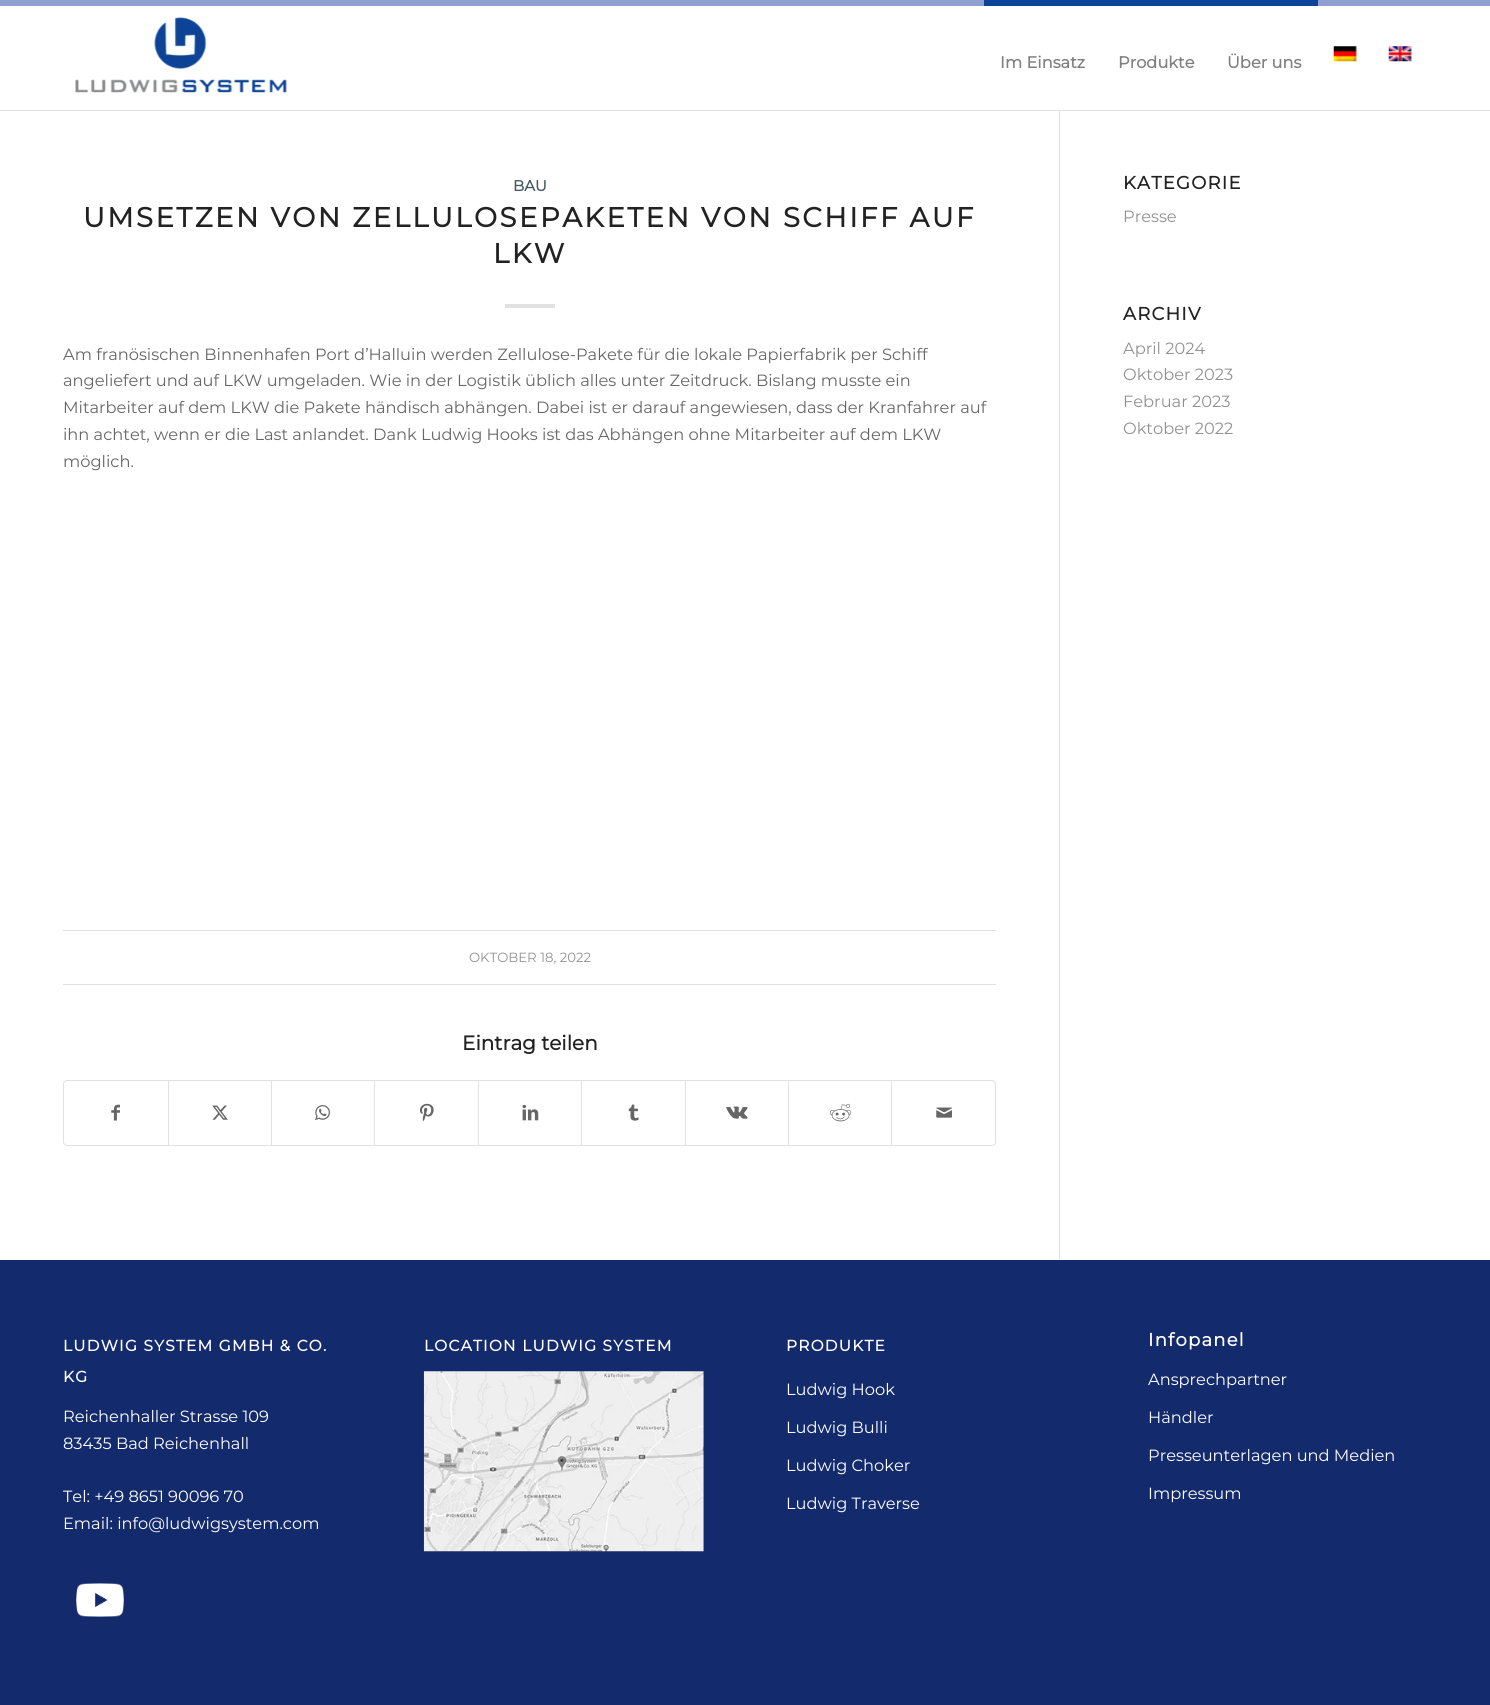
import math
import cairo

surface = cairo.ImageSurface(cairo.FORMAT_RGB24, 1490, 1705)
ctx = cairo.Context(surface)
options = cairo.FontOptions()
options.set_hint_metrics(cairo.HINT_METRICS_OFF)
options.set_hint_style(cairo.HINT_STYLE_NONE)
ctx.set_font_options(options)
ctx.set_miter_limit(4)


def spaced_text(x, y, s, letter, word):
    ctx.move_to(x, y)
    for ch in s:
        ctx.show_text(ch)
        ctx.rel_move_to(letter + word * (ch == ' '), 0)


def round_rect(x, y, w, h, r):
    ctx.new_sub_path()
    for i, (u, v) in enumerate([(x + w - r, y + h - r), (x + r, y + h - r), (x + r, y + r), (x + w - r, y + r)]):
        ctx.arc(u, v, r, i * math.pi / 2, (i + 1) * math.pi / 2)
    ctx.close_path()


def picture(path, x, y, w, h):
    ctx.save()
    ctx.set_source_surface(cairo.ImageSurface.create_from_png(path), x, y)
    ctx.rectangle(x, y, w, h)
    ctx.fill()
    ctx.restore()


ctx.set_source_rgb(1, 1, 1)
ctx.paint()
ctx.set_source_rgb(0.557, 0.624, 0.816)
ctx.rectangle(0, 0, 1490, 6)
ctx.fill()
ctx.set_source_rgb(0.882, 0.882, 0.882)
ctx.rectangle(0, 110, 1490, 1)
ctx.fill()
picture("img1.png", 75, 17, 212, 76)
ctx.set_source_rgb(0.055, 0.267, 0.592)
ctx.rectangle(984, 0, 334, 6)
ctx.fill()
ctx.select_font_face("Montserrat", cairo.FONT_SLANT_NORMAL, cairo.FONT_WEIGHT_BOLD)
ctx.set_font_size(16.25)
ctx.set_source_rgb(0.502, 0.502, 0.502)
ctx.move_to(1000, 68)
ctx.show_text("Im Einsatz")
ctx.move_to(1118, 68)
ctx.show_text("Produkte")
ctx.move_to(1227, 68)
ctx.show_text("Über uns")
picture("img2.png", 1333, 46, 24, 16)
picture("img3.png", 1388, 46, 24, 16)
ctx.set_source_rgb(0.882, 0.882, 0.882)
ctx.rectangle(1059, 111, 1, 1148)
ctx.fill()
ctx.set_font_size(15)
ctx.set_source_rgb(0.263, 0.349, 0.376)
ctx.move_to(513, 191)
ctx.show_text("BAU")
ctx.set_font_size(27.5)
ctx.set_source_rgb(0.133, 0.133, 0.133)
spaced_text(83, 227, "UMSETZEN VON ZELLULOSEPAKETEN VON SCHIFF AUF", 2.5, 0)
spaced_text(493, 263, "LKW", 2.5, 0)
ctx.set_source_rgb(0.882, 0.882, 0.882)
ctx.rectangle(505, 304, 50, 4)
ctx.fill()
ctx.select_font_face("Montserrat Thin")
ctx.set_font_size(16.25)
ctx.set_source_rgb(0.4, 0.4, 0.4)
ctx.move_to(63, 360)
ctx.show_text("Am franösischen Binnenhafen Port d’Halluin werden Zellulose-Pakete für die lokale Papierfabrik per Schiff")
ctx.move_to(63, 386)
ctx.show_text("angeliefert und auf LKW umgeladen. Wie in der Logistik üblich alles unter Zeitdruck. Bislang musste ein")
ctx.move_to(63, 413)
ctx.show_text("Mitarbeiter auf dem LKW die Pakete händisch abhängen. Dabei ist er darauf angewiesen, dass der Kranfahrer auf")
ctx.move_to(63, 440)
ctx.show_text("ihn achtet, wenn er die Last anlandet. Dank Ludwig Hooks ist das Abhängen ohne Mitarbeiter auf dem LKW")
ctx.move_to(63, 467)
ctx.show_text("möglich.")
ctx.set_source_rgb(0.882, 0.882, 0.882)
ctx.rectangle(63, 930, 933, 1)
ctx.fill()
ctx.rectangle(63, 984, 933, 1)
ctx.fill()
ctx.set_font_size(13.25)
ctx.set_source_rgb(0.569, 0.569, 0.569)
ctx.move_to(469, 962)
ctx.show_text("OKTOBER 18, 2022")
ctx.select_font_face("Montserrat", cairo.FONT_SLANT_NORMAL, cairo.FONT_WEIGHT_BOLD)
ctx.set_font_size(20)
ctx.set_source_rgb(0.133, 0.133, 0.133)
ctx.move_to(462, 1050)
ctx.show_text("Eintrag teilen")
round_rect(63.5, 1080.5, 932, 65, 3.5)
ctx.set_source_rgb(0.882, 0.882, 0.882)
ctx.set_line_width(1)
ctx.stroke()
picture("img4.png", 111, 1104, 9, 17)
ctx.rectangle(168, 1081, 1, 64)
ctx.fill()
picture("img5.png", 212, 1105, 16, 15)
ctx.rectangle(271, 1081, 1, 64)
ctx.fill()
picture("img6.png", 315, 1105, 15, 16)
ctx.rectangle(374, 1081, 1, 64)
ctx.fill()
picture("img7.png", 420, 1103, 14, 19)
ctx.rectangle(478, 1081, 1, 64)
ctx.fill()
picture("img8.png", 522, 1104, 17, 17)
ctx.rectangle(581, 1081, 1, 64)
ctx.fill()
picture("img9.png", 628, 1104, 11, 17)
ctx.rectangle(685, 1081, 1, 64)
ctx.fill()
picture("img10.png", 726, 1106, 22, 13)
ctx.rectangle(788, 1081, 1, 64)
ctx.fill()
picture("img11.png", 830, 1103, 22, 19)
ctx.rectangle(891, 1081, 1, 64)
ctx.fill()
picture("img12.png", 936, 1107, 16, 11)
ctx.set_font_size(18)
ctx.set_source_rgb(0.133, 0.133, 0.133)
spaced_text(1123, 189, "KATEGORIE", 1.25, 0)
ctx.select_font_face("Montserrat Thin")
ctx.set_font_size(16.25)
ctx.set_source_rgb(0.569, 0.569, 0.569)
ctx.move_to(1123, 222)
ctx.show_text("Presse")
ctx.select_font_face("Montserrat", cairo.FONT_SLANT_NORMAL, cairo.FONT_WEIGHT_BOLD)
ctx.set_font_size(18)
ctx.set_source_rgb(0.133, 0.133, 0.133)
spaced_text(1123, 320, "ARCHIV", 1.25, 0)
ctx.select_font_face("Montserrat Thin")
ctx.set_font_size(16.25)
ctx.set_source_rgb(0.569, 0.569, 0.569)
ctx.move_to(1123, 354)
ctx.show_text("April 2024")
ctx.move_to(1123, 380)
ctx.show_text("Oktober 2023")
ctx.move_to(1123, 407)
ctx.show_text("Februar 2023")
ctx.move_to(1123, 434)
ctx.show_text("Oktober 2022")
ctx.set_source_rgb(0.078, 0.165, 0.427)
ctx.rectangle(0, 1260, 1490, 445)
ctx.fill()
ctx.select_font_face("Montserrat", cairo.FONT_SLANT_NORMAL, cairo.FONT_WEIGHT_BOLD)
ctx.set_font_size(15.4)
ctx.set_source_rgb(1, 1, 1)
spaced_text(63, 1351, "LUDWIG SYSTEM GMBH & CO.", 1.25, 0)
spaced_text(63, 1382, "KG", 1.25, 0)
ctx.select_font_face("Montserrat Thin")
ctx.set_font_size(16.25)
ctx.move_to(63, 1422)
ctx.show_text("Reichenhaller Strasse 109")
ctx.move_to(63, 1449)
ctx.show_text("83435 Bad Reichenhall")
ctx.move_to(63, 1502)
ctx.show_text("Tel: +49 8651 90096 70")
ctx.move_to(63, 1529)
ctx.show_text("Email: info@ludwigsystem.com")
picture("img13.png", 76, 1583, 48, 34)
ctx.select_font_face("Montserrat", cairo.FONT_SLANT_NORMAL, cairo.FONT_WEIGHT_BOLD)
ctx.set_font_size(15.4)
spaced_text(424, 1351, "LOCATION LUDWIG SYSTEM", 1.25, 0)
picture("img14.png", 423, 1371, 281, 181)
spaced_text(786, 1351, "PRODUKTE", 1.25, 0)
ctx.select_font_face("Montserrat Thin")
ctx.set_font_size(16.25)
ctx.move_to(786, 1395)
ctx.show_text("Ludwig Hook")
ctx.move_to(786, 1433)
ctx.show_text("Ludwig Bulli")
ctx.move_to(786, 1471)
ctx.show_text("Ludwig Choker")
ctx.move_to(786, 1509)
ctx.show_text("Ludwig Traverse")
ctx.select_font_face("Montserrat", cairo.FONT_SLANT_NORMAL, cairo.FONT_WEIGHT_BOLD)
ctx.set_font_size(18)
spaced_text(1148, 1346, "Infopanel", 1.25, 0)
ctx.select_font_face("Montserrat Thin")
ctx.set_font_size(16.25)
ctx.move_to(1148, 1385)
ctx.show_text("Ansprechpartner")
ctx.move_to(1148, 1423)
ctx.show_text("Händler")
ctx.move_to(1148, 1461)
ctx.show_text("Presseunterlagen und Medien")
ctx.move_to(1148, 1499)
ctx.show_text("Impressum")
surface.write_to_png("page.png")
